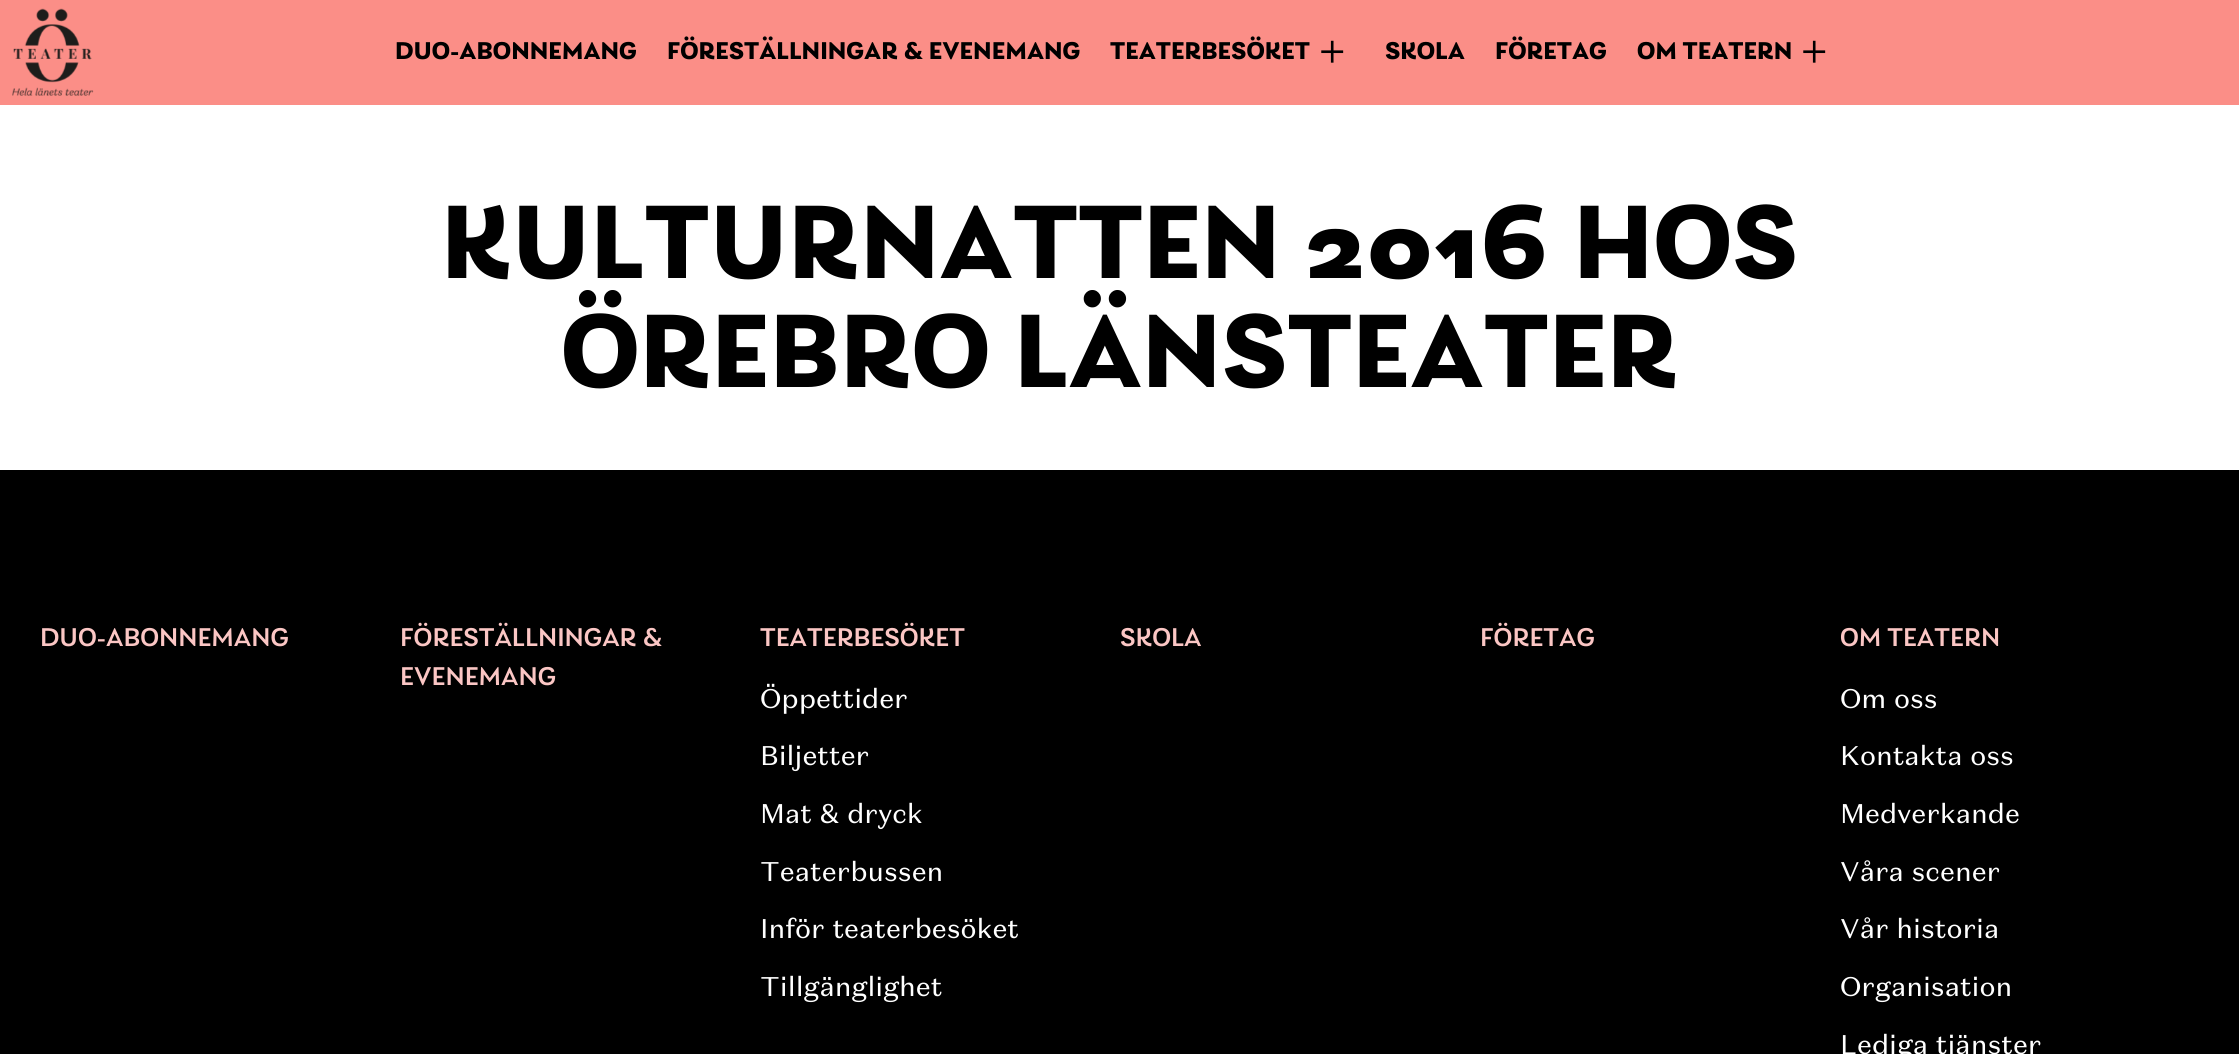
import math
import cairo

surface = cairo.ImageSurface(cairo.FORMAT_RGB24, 2239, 1054)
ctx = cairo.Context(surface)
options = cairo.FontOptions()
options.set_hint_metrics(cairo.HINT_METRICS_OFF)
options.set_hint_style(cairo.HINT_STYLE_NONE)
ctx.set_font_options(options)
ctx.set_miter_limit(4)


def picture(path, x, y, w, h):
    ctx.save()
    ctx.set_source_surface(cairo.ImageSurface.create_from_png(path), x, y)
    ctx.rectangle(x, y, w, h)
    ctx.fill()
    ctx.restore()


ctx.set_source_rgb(1, 1, 1)
ctx.paint()
ctx.set_source_rgb(0.984, 0.557, 0.529)
ctx.rectangle(0, 0, 2239, 105)
ctx.fill()
picture("img1.png", 12, 8, 82, 88)
ctx.select_font_face("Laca", cairo.FONT_SLANT_NORMAL, cairo.FONT_WEIGHT_BOLD)
ctx.set_font_size(25.5)
ctx.set_source_rgb(0, 0, 0)
ctx.move_to(395, 59)
ctx.show_text("DUO-ABONNEMANG")
ctx.move_to(667, 59)
ctx.show_text("FÖRESTÄLLNINGAR & EVENEMANG")
ctx.move_to(1110, 59)
ctx.show_text("TEATERBESÖKET")
ctx.select_font_face("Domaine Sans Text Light")
ctx.set_font_size(48)
ctx.move_to(1317, 68)
ctx.show_text("+")
ctx.select_font_face("Laca", cairo.FONT_SLANT_NORMAL, cairo.FONT_WEIGHT_BOLD)
ctx.set_font_size(25.5)
ctx.move_to(1385, 59)
ctx.show_text("SKOLA")
ctx.move_to(1495, 59)
ctx.show_text("FÖRETAG")
ctx.move_to(1637, 59)
ctx.show_text("OM TEATERN")
ctx.select_font_face("Domaine Sans Text Light")
ctx.set_font_size(48)
ctx.move_to(1799, 68)
ctx.show_text("+")
ctx.select_font_face("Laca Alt", cairo.FONT_SLANT_NORMAL, cairo.FONT_WEIGHT_BOLD)
ctx.set_font_size(109.5)
ctx.move_to(441, 278)
ctx.show_text("KULTURNATTEN 2016 HOS")
ctx.select_font_face("Laca", cairo.FONT_SLANT_NORMAL, cairo.FONT_WEIGHT_BOLD)
ctx.move_to(561, 387)
ctx.show_text("ÖREBRO LÄNSTEATER")
ctx.rectangle(0, 470, 2239, 584)
ctx.fill()
ctx.select_font_face("Laca Medium")
ctx.set_font_size(27)
ctx.set_source_rgb(0.984, 0.776, 0.769)
ctx.move_to(40, 646)
ctx.show_text("DUO-ABONNEMANG")
ctx.move_to(400, 646)
ctx.show_text("FÖRESTÄLLNINGAR &")
ctx.move_to(400, 685)
ctx.show_text("EVENEMANG")
ctx.move_to(760, 646)
ctx.show_text("TEATERBESÖKET")
ctx.select_font_face("Domaine Sans Text")
ctx.set_source_rgb(1, 1, 1)
ctx.move_to(760, 708)
ctx.show_text("Öppettider")
ctx.move_to(760, 765)
ctx.show_text("Biljetter")
ctx.move_to(760, 823)
ctx.show_text("Mat & dryck")
ctx.move_to(760, 881)
ctx.show_text("Teaterbussen")
ctx.move_to(760, 938)
ctx.show_text("Inför teaterbesöket")
ctx.move_to(760, 996)
ctx.show_text("Tillgänglighet")
ctx.select_font_face("Laca Medium")
ctx.set_source_rgb(0.984, 0.776, 0.769)
ctx.move_to(1120, 646)
ctx.show_text("SKOLA")
ctx.move_to(1480, 646)
ctx.show_text("FÖRETAG")
ctx.move_to(1840, 646)
ctx.show_text("OM TEATERN")
ctx.select_font_face("Domaine Sans Text")
ctx.set_source_rgb(1, 1, 1)
ctx.move_to(1840, 708)
ctx.show_text("Om oss")
ctx.move_to(1840, 765)
ctx.show_text("Kontakta oss")
ctx.move_to(1840, 823)
ctx.show_text("Medverkande")
ctx.move_to(1840, 881)
ctx.show_text("Våra scener")
ctx.move_to(1840, 938)
ctx.show_text("Vår historia")
ctx.move_to(1840, 996)
ctx.show_text("Organisation")
ctx.move_to(1840, 1054)
ctx.show_text("Lediga tjänster")
surface.write_to_png("page.png")
